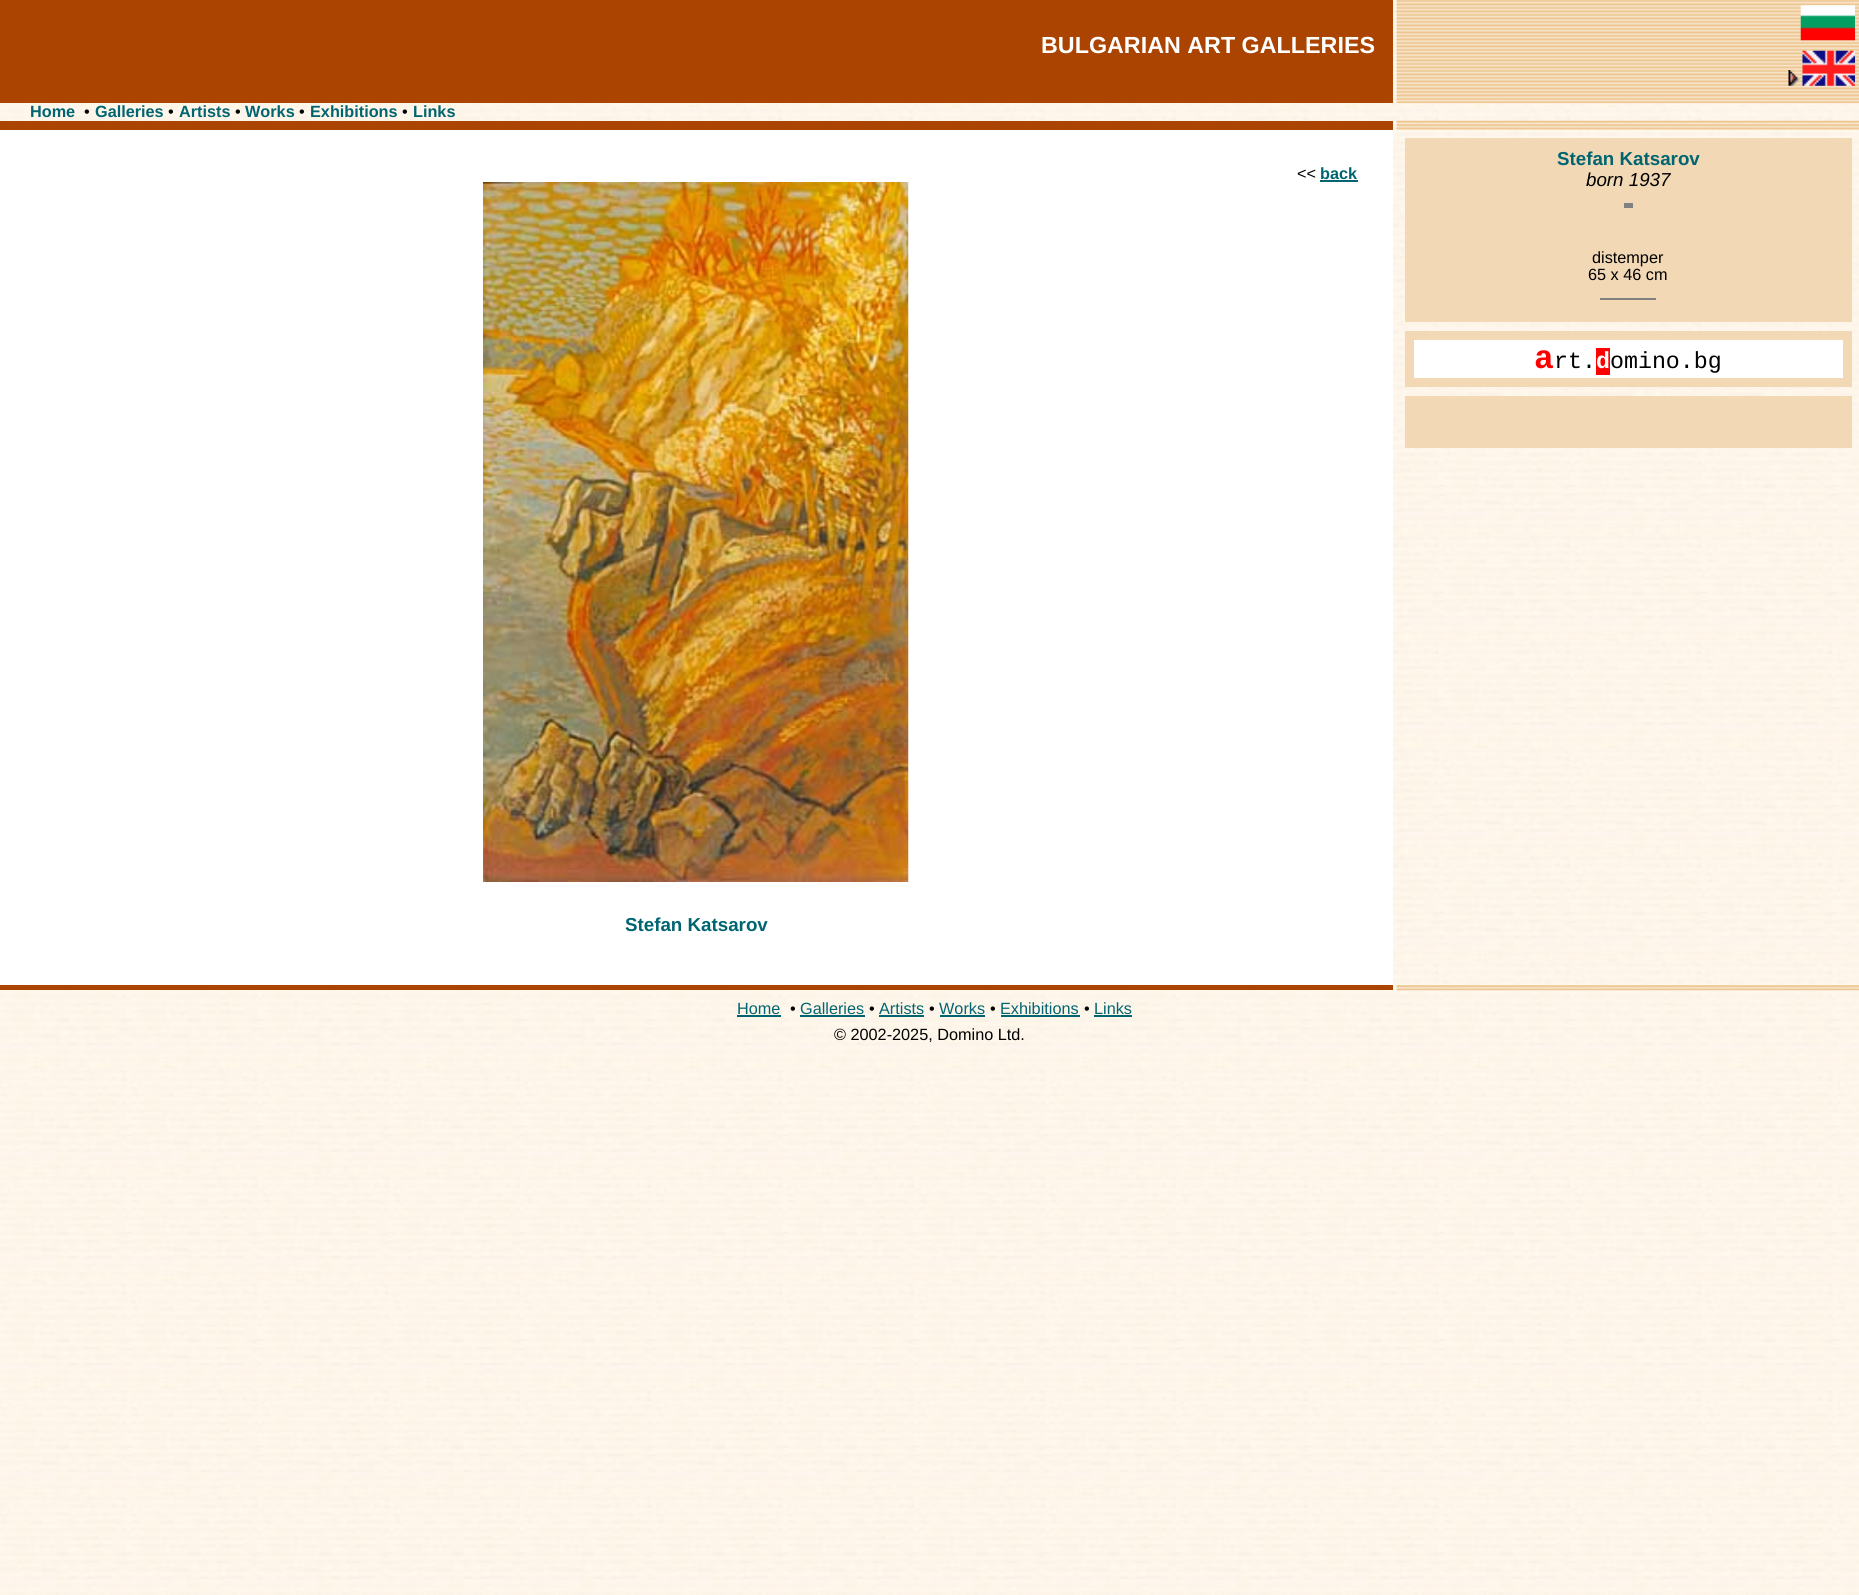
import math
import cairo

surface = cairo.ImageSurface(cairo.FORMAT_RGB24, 1859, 1595)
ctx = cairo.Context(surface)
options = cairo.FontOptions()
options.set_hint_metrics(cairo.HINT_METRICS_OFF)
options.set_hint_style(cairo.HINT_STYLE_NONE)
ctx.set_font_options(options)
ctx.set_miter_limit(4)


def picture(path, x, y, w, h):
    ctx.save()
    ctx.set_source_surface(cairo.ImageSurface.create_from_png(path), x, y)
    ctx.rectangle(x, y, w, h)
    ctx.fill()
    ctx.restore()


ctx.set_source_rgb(1, 1, 1)
ctx.paint()
picture("img1.png", 0, 0, 1859, 1595)
ctx.set_source_rgb(0.667, 0.267, 0)
ctx.rectangle(0, 0, 1393, 103)
ctx.fill()
ctx.select_font_face("Liberation Sans", cairo.FONT_SLANT_NORMAL, cairo.FONT_WEIGHT_BOLD)
ctx.set_font_size(23.3)
ctx.set_source_rgb(1, 1, 1)
ctx.move_to(1041, 53)
ctx.show_text("BULGARIAN ART GALLERIES")
ctx.set_source_rgb(0.969, 0.902, 0.808)
ctx.rectangle(1397, 0, 462, 103)
ctx.fill()
picture("img2.png", 1396, 0, 463, 104)
picture("img3.png", 1800, 5, 55, 36)
picture("img4.png", 1788, 70, 12, 16)
picture("img5.png", 1802, 50, 53, 36)
ctx.set_font_size(16.25)
ctx.set_source_rgb(0, 0.396, 0.443)
ctx.move_to(30, 117)
ctx.show_text("Home")
ctx.select_font_face("Liberation Sans")
ctx.set_source_rgb(0, 0, 0)
ctx.move_to(84, 117)
ctx.show_text("•")
ctx.select_font_face("Liberation Sans", cairo.FONT_SLANT_NORMAL, cairo.FONT_WEIGHT_BOLD)
ctx.set_source_rgb(0, 0.396, 0.443)
ctx.move_to(95, 117)
ctx.show_text("Galleries")
ctx.select_font_face("Liberation Sans")
ctx.set_source_rgb(0, 0, 0)
ctx.move_to(168, 117)
ctx.show_text("•")
ctx.select_font_face("Liberation Sans", cairo.FONT_SLANT_NORMAL, cairo.FONT_WEIGHT_BOLD)
ctx.set_source_rgb(0, 0.396, 0.443)
ctx.move_to(179, 117)
ctx.show_text("Artists")
ctx.select_font_face("Liberation Sans")
ctx.set_source_rgb(0, 0, 0)
ctx.move_to(235, 117)
ctx.show_text("•")
ctx.select_font_face("Liberation Sans", cairo.FONT_SLANT_NORMAL, cairo.FONT_WEIGHT_BOLD)
ctx.set_source_rgb(0, 0.396, 0.443)
ctx.move_to(245, 117)
ctx.show_text("Works")
ctx.select_font_face("Liberation Sans")
ctx.set_source_rgb(0, 0, 0)
ctx.move_to(299, 117)
ctx.show_text("•")
ctx.select_font_face("Liberation Sans", cairo.FONT_SLANT_NORMAL, cairo.FONT_WEIGHT_BOLD)
ctx.set_source_rgb(0, 0.396, 0.443)
ctx.move_to(310, 117)
ctx.show_text("Exhibitions")
ctx.select_font_face("Liberation Sans")
ctx.set_source_rgb(0, 0, 0)
ctx.move_to(402, 117)
ctx.show_text("•")
ctx.select_font_face("Liberation Sans", cairo.FONT_SLANT_NORMAL, cairo.FONT_WEIGHT_BOLD)
ctx.set_source_rgb(0, 0.396, 0.443)
ctx.move_to(413, 117)
ctx.show_text("Links")
ctx.set_source_rgb(0.667, 0.267, 0)
ctx.rectangle(0, 121, 1393, 9)
ctx.fill()
ctx.set_source_rgb(0.969, 0.902, 0.808)
ctx.rectangle(1397, 122, 462, 8)
ctx.fill()
picture("img6.png", 1396, 120, 463, 10)
ctx.set_source_rgb(1, 1, 1)
ctx.rectangle(0, 130, 1393, 855)
ctx.fill()
ctx.select_font_face("Liberation Sans")
ctx.set_source_rgb(0, 0, 0)
ctx.move_to(1297, 179)
ctx.show_text("<<")
ctx.select_font_face("Liberation Sans", cairo.FONT_SLANT_NORMAL, cairo.FONT_WEIGHT_BOLD)
ctx.set_source_rgb(0, 0.396, 0.443)
ctx.move_to(1320, 179)
ctx.show_text("back")
ctx.rectangle(1320, 180, 38, 2)
ctx.fill()
picture("img7.png", 483, 182, 426, 700)
ctx.set_font_size(18.75)
ctx.move_to(625, 931)
ctx.show_text("Stefan Katsarov")
ctx.set_source_rgb(0.949, 0.847, 0.71)
ctx.rectangle(1405, 138, 447, 184)
ctx.fill()
ctx.set_source_rgb(0, 0.396, 0.443)
ctx.move_to(1557, 165)
ctx.show_text("Stefan Katsarov")
ctx.select_font_face("Liberation Sans", cairo.FONT_SLANT_ITALIC)
ctx.set_source_rgb(0, 0, 0)
ctx.move_to(1586, 186)
ctx.show_text("born 1937")
ctx.set_source_rgb(0.502, 0.502, 0.502)
ctx.rectangle(1624, 203, 9, 5)
ctx.fill()
ctx.select_font_face("Liberation Sans")
ctx.set_font_size(16.25)
ctx.set_source_rgb(0, 0, 0)
ctx.move_to(1592, 263)
ctx.show_text("distemper")
ctx.move_to(1588, 280)
ctx.show_text("65 x 46 cm")
ctx.set_source_rgb(0.502, 0.502, 0.502)
ctx.rectangle(1600, 298, 56, 2)
ctx.fill()
ctx.set_source_rgb(0.949, 0.847, 0.71)
ctx.rectangle(1405, 331, 447, 56)
ctx.fill()
ctx.set_source_rgb(1, 1, 1)
ctx.rectangle(1414, 340, 429, 38)
ctx.fill()
ctx.select_font_face("Liberation Mono", cairo.FONT_SLANT_NORMAL, cairo.FONT_WEIGHT_BOLD)
ctx.set_font_size(33)
ctx.set_source_rgb(1, 0, 0)
ctx.move_to(1534, 368)
ctx.show_text("a")
ctx.select_font_face("Liberation Mono")
ctx.set_font_size(23.3)
ctx.set_source_rgb(0, 0, 0)
ctx.move_to(1554, 368)
ctx.show_text("rt. omino.bg")
ctx.set_source_rgb(1, 0, 0)
ctx.rectangle(1596, 348, 14, 27)
ctx.fill()
ctx.select_font_face("Liberation Mono", cairo.FONT_SLANT_NORMAL, cairo.FONT_WEIGHT_BOLD)
ctx.set_source_rgb(1, 1, 1)
ctx.move_to(1596, 368)
ctx.show_text("d")
ctx.set_source_rgb(0.949, 0.847, 0.71)
ctx.rectangle(1405, 396, 447, 52)
ctx.fill()
ctx.set_source_rgb(0.667, 0.267, 0)
ctx.rectangle(0, 985, 1393, 5)
ctx.fill()
ctx.set_source_rgb(0.969, 0.902, 0.808)
ctx.rectangle(1397, 985, 462, 5)
ctx.fill()
picture("img8.png", 1396, 985, 463, 6)
ctx.select_font_face("Liberation Sans")
ctx.set_font_size(16.25)
ctx.set_source_rgb(0, 0.396, 0.443)
ctx.move_to(737, 1014)
ctx.show_text("Home")
ctx.rectangle(737, 1015, 44, 2)
ctx.fill()
ctx.set_source_rgb(0, 0, 0)
ctx.move_to(790, 1014)
ctx.show_text("•")
ctx.set_source_rgb(0, 0.396, 0.443)
ctx.move_to(800, 1014)
ctx.show_text("Galleries")
ctx.rectangle(800, 1015, 65, 2)
ctx.fill()
ctx.set_source_rgb(0, 0, 0)
ctx.move_to(869, 1014)
ctx.show_text("•")
ctx.set_source_rgb(0, 0.396, 0.443)
ctx.move_to(879, 1014)
ctx.show_text("Artists")
ctx.rectangle(879, 1015, 45, 2)
ctx.fill()
ctx.set_source_rgb(0, 0, 0)
ctx.move_to(929, 1014)
ctx.show_text("•")
ctx.set_source_rgb(0, 0.396, 0.443)
ctx.move_to(939, 1014)
ctx.show_text("Works")
ctx.rectangle(940, 1015, 45, 2)
ctx.fill()
ctx.set_source_rgb(0, 0, 0)
ctx.move_to(990, 1014)
ctx.show_text("•")
ctx.set_source_rgb(0, 0.396, 0.443)
ctx.move_to(1000, 1014)
ctx.show_text("Exhibitions")
ctx.rectangle(1001, 1015, 79, 2)
ctx.fill()
ctx.set_source_rgb(0, 0, 0)
ctx.move_to(1084, 1014)
ctx.show_text("•")
ctx.set_source_rgb(0, 0.396, 0.443)
ctx.move_to(1094, 1014)
ctx.show_text("Links")
ctx.rectangle(1094, 1015, 38, 2)
ctx.fill()
ctx.set_source_rgb(0, 0, 0)
ctx.move_to(834, 1040)
ctx.show_text("© 2002-2025, Domino Ltd.")
surface.write_to_png("page.png")
